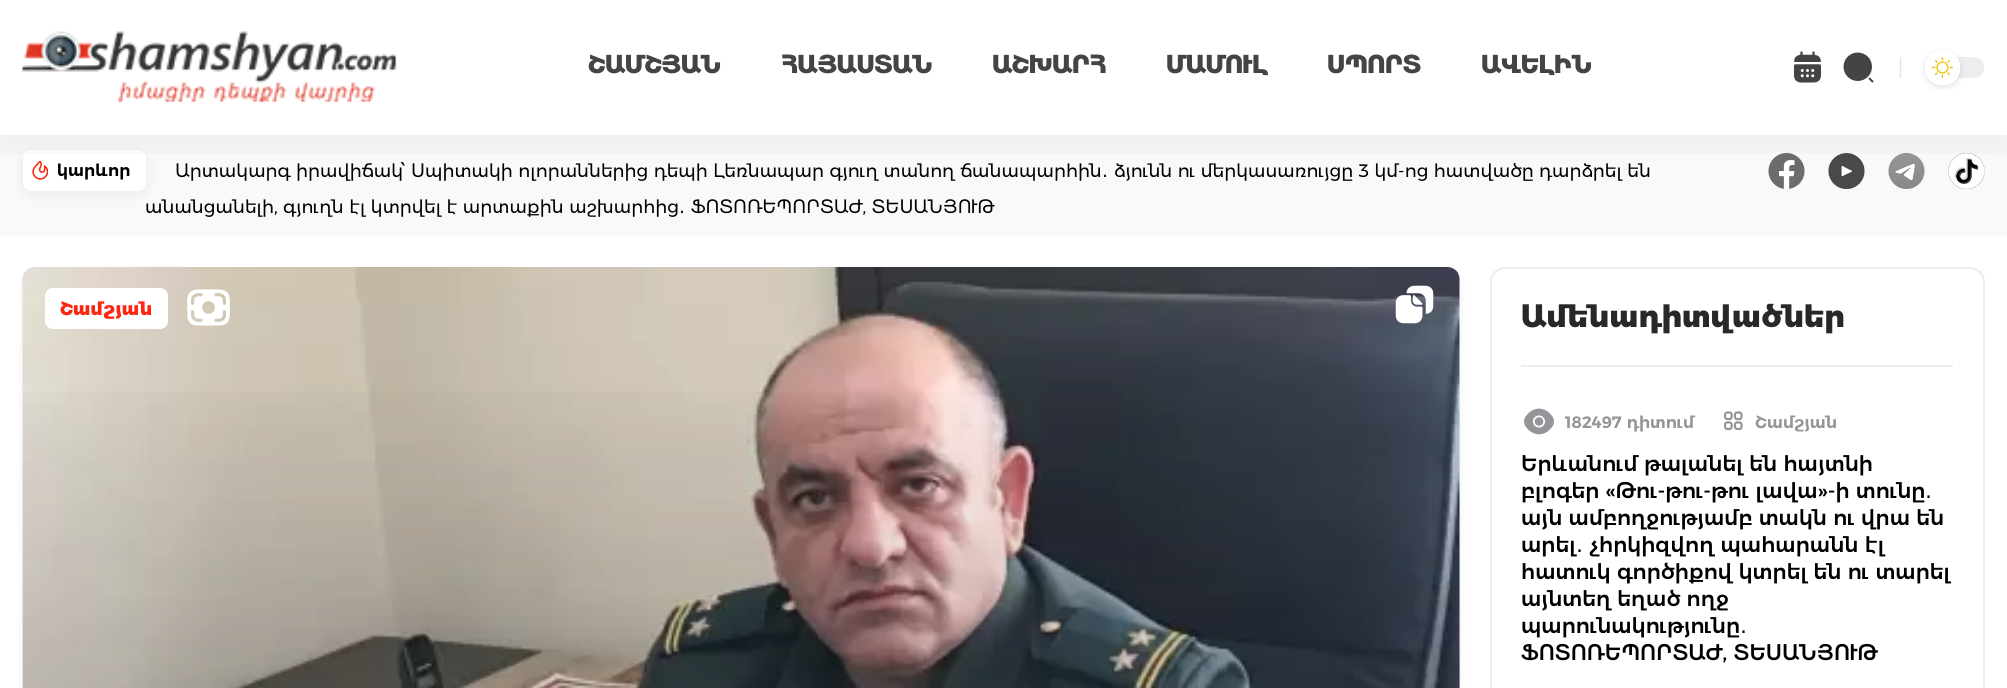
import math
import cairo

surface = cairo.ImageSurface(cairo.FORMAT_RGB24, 2007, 688)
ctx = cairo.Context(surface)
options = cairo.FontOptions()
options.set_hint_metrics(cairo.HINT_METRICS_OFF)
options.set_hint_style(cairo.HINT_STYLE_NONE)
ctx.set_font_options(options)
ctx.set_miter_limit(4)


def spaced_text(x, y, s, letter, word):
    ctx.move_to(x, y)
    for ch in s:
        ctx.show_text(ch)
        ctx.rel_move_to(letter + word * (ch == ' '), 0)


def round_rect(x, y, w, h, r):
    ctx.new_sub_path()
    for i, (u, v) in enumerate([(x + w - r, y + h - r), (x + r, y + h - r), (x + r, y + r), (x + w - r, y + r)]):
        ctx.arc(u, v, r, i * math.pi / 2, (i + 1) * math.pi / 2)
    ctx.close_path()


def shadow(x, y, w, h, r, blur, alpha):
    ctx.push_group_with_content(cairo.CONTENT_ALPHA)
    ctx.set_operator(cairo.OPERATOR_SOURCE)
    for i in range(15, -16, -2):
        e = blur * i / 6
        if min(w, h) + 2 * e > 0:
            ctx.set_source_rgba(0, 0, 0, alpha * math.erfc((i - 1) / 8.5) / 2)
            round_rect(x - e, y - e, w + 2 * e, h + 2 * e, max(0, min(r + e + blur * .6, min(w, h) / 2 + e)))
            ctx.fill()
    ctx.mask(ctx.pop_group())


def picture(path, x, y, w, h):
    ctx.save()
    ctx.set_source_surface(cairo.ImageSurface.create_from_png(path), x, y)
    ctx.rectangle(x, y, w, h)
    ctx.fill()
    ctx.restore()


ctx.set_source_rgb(1, 1, 1)
ctx.paint()
ctx.set_source_rgb(0.976, 0.976, 0.976)
ctx.rectangle(0, 135, 2007, 102)
ctx.fill()
ctx.set_source_rgb(0, 0, 0)
shadow(23, 153, 123, 41, 8, 7.5, 0.07)
ctx.set_source_rgb(1, 1, 1)
round_rect(23, 150, 123, 41, 8)
ctx.fill()
picture("img5.png", 32, 161, 16, 19)
ctx.save()
ctx.rectangle(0, 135, 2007, 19)
ctx.clip()
ctx.set_source_rgb(0, 0, 0)
shadow(0, 6, 2007, 135, 0, 22.5, 0.07)
ctx.restore()
picture("img1.png", 22, 31, 375, 72)
ctx.select_font_face("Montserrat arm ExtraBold")
ctx.set_font_size(24)
ctx.set_source_rgb(0.267, 0.267, 0.267)
spaced_text(588, 73, "ՇԱՄՇՅԱՆ", -0.5, 0)
spaced_text(781, 73, "ՀԱՅԱՍՏԱՆ", -0.5, 0)
spaced_text(992, 73, "ԱՇԽԱՐՀ", -0.5, 0)
spaced_text(1166, 73, "ՄԱՄՈՒԼ", -0.5, 0)
spaced_text(1327, 73, "ՍՊՈՐՏ", -0.5, 0)
spaced_text(1481, 73, "ԱՎԵԼԻՆ", -0.5, 0)
picture("img2.png", 1794, 51, 27, 32)
picture("img3.png", 1843, 52, 31, 31)
picture("img4.png", 1899, 49, 85, 41)
ctx.select_font_face("Montserrat arm SemiBold")
ctx.set_font_size(16.5)
ctx.set_source_rgb(0, 0, 0)
ctx.move_to(57, 176)
ctx.show_text("կարևոր")
ctx.select_font_face("Montserrat arm")
ctx.set_font_size(18)
ctx.move_to(175, 177)
ctx.show_text("Արտակարգ իրավիճակ՝ Սպիտակի ոլորաններից դեպի Լեռնապար գյուղ տանող ճանապարհին")
ctx.select_font_face("DejaVu Sans")
ctx.move_to(1102, 177)
ctx.show_text("․")
ctx.select_font_face("Montserrat arm")
ctx.move_to(1114, 177)
ctx.show_text("ձյունն ու մերկասառույցը 3 կմ-ոց հատվածը դարձրել են")
ctx.move_to(145, 213)
ctx.show_text("անանցանելի, գյուղն էլ կտրվել է արտաքին աշխարհից")
ctx.select_font_face("DejaVu Sans")
ctx.move_to(679, 213)
ctx.show_text("․")
ctx.select_font_face("Montserrat arm")
ctx.move_to(691, 213)
ctx.show_text("ՖՈՏՈՌԵՊՈՐՏԱԺ, ՏԵՍԱՆՅՈՒԹ")
picture("img6.png", 1768, 153, 37, 36)
picture("img7.png", 1828, 153, 37, 36)
picture("img8.png", 1888, 153, 37, 36)
picture("img9.png", 1948, 153, 37, 36)
ctx.set_source_rgb(0, 0, 0)
shadow(24, 275, 1434, 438, 11, 4.5, 0.1)
ctx.set_source_rgb(1, 1, 1)
round_rect(23, 267, 1437, 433, 12)
ctx.fill()
picture("img10.png", 22, 267, 1438, 421)
round_rect(45, 288, 123, 41, 8)
ctx.fill()
ctx.select_font_face("Montserrat arm ExtraBold")
ctx.set_source_rgb(0.988, 0.149, 0.071)
ctx.move_to(60, 315)
ctx.show_text("Շամշյան")
picture("img11.png", 187, 289, 43, 37)
picture("img12.png", 1395, 285, 39, 39)
gradient = cairo.LinearGradient(740, 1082, 740, 339)
gradient.add_color_stop_rgba(0, 0.125, 0.122, 0.098, 0.24)
gradient.add_color_stop_rgba(0, 0.098, 0.11, 0.125, 0.3)
gradient.add_color_stop_rgba(1, 0.098, 0.11, 0.125, 0)
ctx.set_source(gradient)
ctx.rectangle(23, 392, 1437, 296)
ctx.fill()
round_rect(1491, 268, 493, 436, 14)
ctx.set_source_rgb(0.929, 0.929, 0.929)
ctx.stroke()
ctx.set_font_size(30)
ctx.set_source_rgb(0.157, 0.157, 0.157)
ctx.move_to(1521, 327)
ctx.show_text("Ամենադիտվածներ")
ctx.set_source_rgb(0.933, 0.933, 0.933)
ctx.rectangle(1521, 365, 432, 2)
ctx.fill()
picture("img13.png", 1524, 408, 30, 27)
ctx.select_font_face("Montserrat arm SemiBold")
ctx.set_font_size(16.5)
ctx.set_source_rgb(0.576, 0.584, 0.596)
ctx.move_to(1565, 428)
ctx.show_text("182497 դիտում")
picture("img14.png", 1724, 411, 19, 20)
ctx.move_to(1755, 428)
ctx.show_text("Շամշյան")
ctx.select_font_face("Montserrat arm Medium")
ctx.set_font_size(21)
ctx.set_source_rgb(0, 0, 0)
ctx.move_to(1521, 471)
ctx.show_text("Երևանում թալանել են հայտնի")
ctx.move_to(1521, 498)
ctx.show_text("բլոգեր «Թու-թու-թու լավա»-ի տունը")
ctx.select_font_face("DejaVu Sans")
ctx.move_to(1925, 498)
ctx.show_text("․")
ctx.select_font_face("Montserrat arm Medium")
ctx.move_to(1521, 525)
ctx.show_text("այն ամբողջությամբ տակն ու վրա են")
ctx.move_to(1521, 552)
ctx.show_text("արել")
ctx.select_font_face("DejaVu Sans")
ctx.move_to(1576, 552)
ctx.show_text("․")
ctx.select_font_face("Montserrat arm Medium")
ctx.move_to(1589, 552)
ctx.show_text("չհրկիզվող պահարանն էլ")
ctx.move_to(1521, 579)
ctx.show_text("հատուկ գործիքով կտրել են ու տարել")
ctx.move_to(1521, 606)
ctx.show_text("այնտեղ եղած ողջ")
ctx.move_to(1521, 633)
ctx.show_text("պարունակությունը")
ctx.select_font_face("DejaVu Sans")
ctx.move_to(1740, 633)
ctx.show_text("․")
ctx.select_font_face("Montserrat arm Medium")
ctx.move_to(1521, 660)
ctx.show_text("ՖՈՏՈՌԵՊՈՐՏԱԺ, ՏԵՍԱՆՅՈՒԹ")
surface.write_to_png("page.png")
